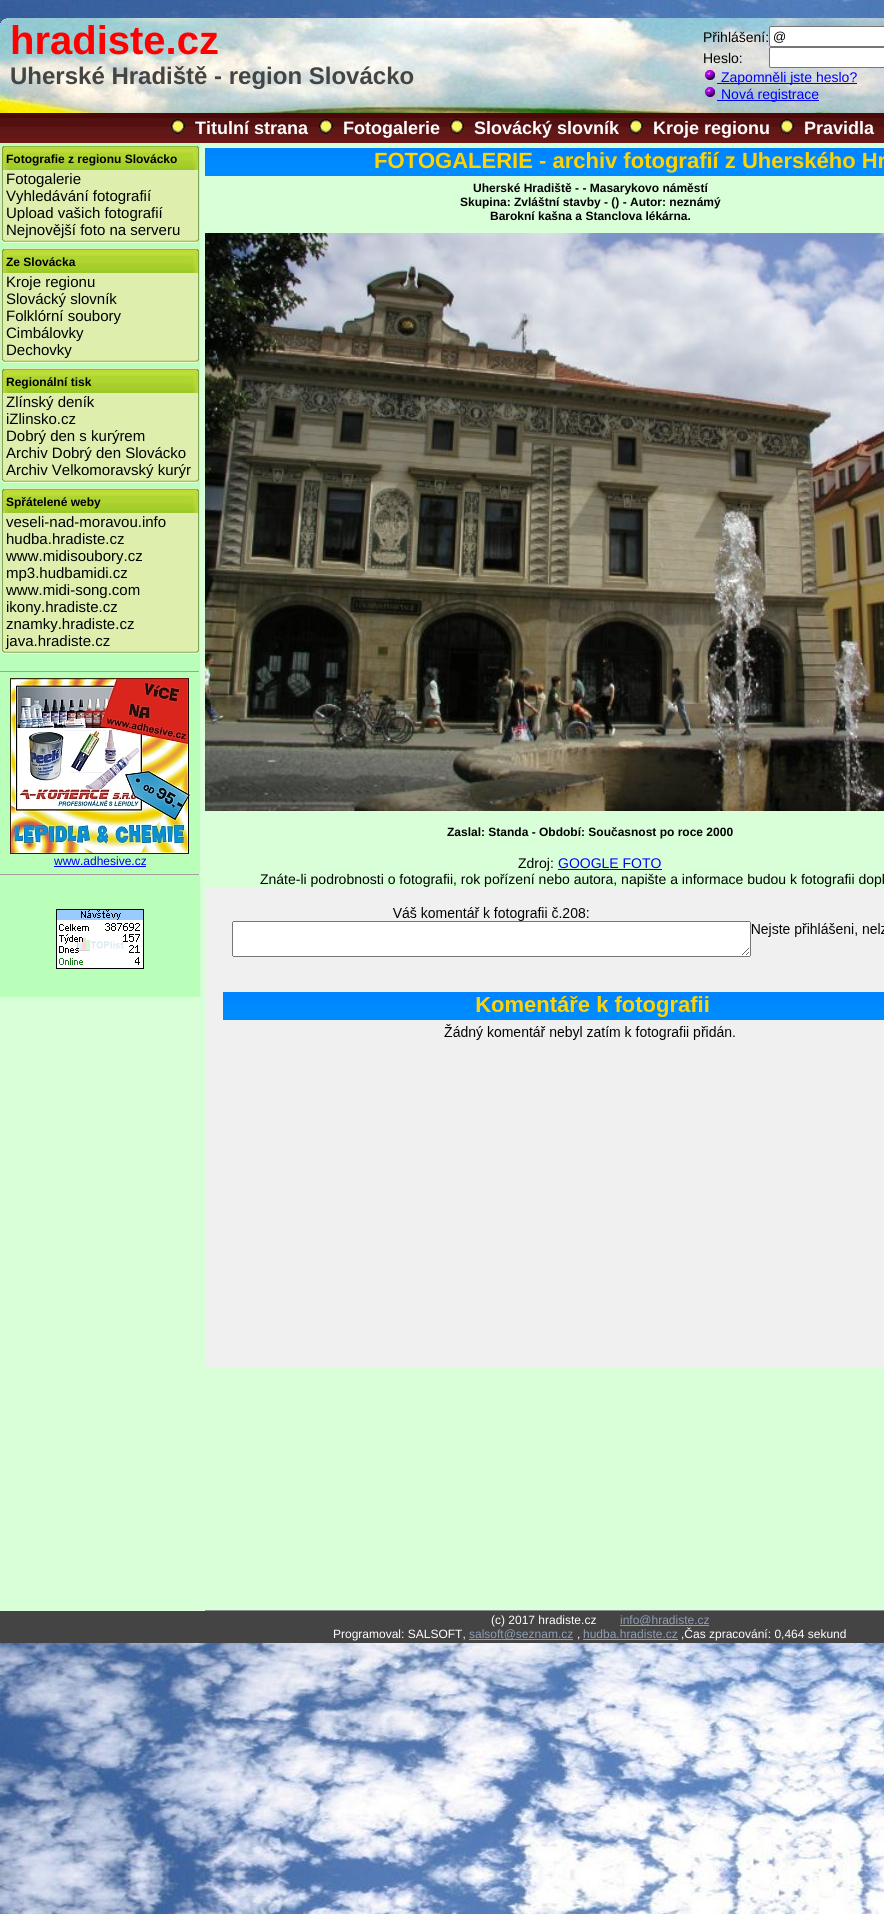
import math
import cairo

surface = cairo.ImageSurface(cairo.FORMAT_RGB24, 884, 1914)
ctx = cairo.Context(surface)
options = cairo.FontOptions()
options.set_hint_metrics(cairo.HINT_METRICS_OFF)
options.set_hint_style(cairo.HINT_STYLE_NONE)
ctx.set_font_options(options)
ctx.set_miter_limit(4)


def round_rect(x, y, w, h, r):
    ctx.new_sub_path()
    for i, (u, v) in enumerate([(x + w - r, y + h - r), (x + r, y + h - r), (x + r, y + r), (x + w - r, y + r)]):
        ctx.arc(u, v, r, i * math.pi / 2, (i + 1) * math.pi / 2)
    ctx.close_path()


def picture(path, x, y, w, h):
    ctx.save()
    ctx.set_source_surface(cairo.ImageSurface.create_from_png(path), x, y)
    ctx.rectangle(x, y, w, h)
    ctx.fill()
    ctx.restore()


ctx.set_source_rgb(1, 1, 1)
ctx.paint()
picture("img1.png", 0, 0, 884, 1914)
ctx.set_source_rgb(0.851, 1, 0.851)
ctx.rectangle(0, 143, 884, 1468)
ctx.fill()
picture("img2.png", 0, 18, 884, 95)
ctx.select_font_face("Liberation Sans", cairo.FONT_SLANT_NORMAL, cairo.FONT_WEIGHT_BOLD)
ctx.set_font_size(40)
ctx.set_source_rgb(1, 0, 0)
ctx.move_to(10, 54)
ctx.show_text("hradiste.cz")
ctx.set_font_size(24)
ctx.set_source_rgb(0.267, 0.267, 0.267)
ctx.move_to(10, 84)
ctx.show_text("Uherské Hradiště - region Slovácko")
ctx.select_font_face("Liberation Sans")
ctx.set_font_size(14)
ctx.set_source_rgb(0, 0, 0)
ctx.move_to(703, 42)
ctx.show_text("Přihlášení:")
ctx.set_source_rgb(1, 1, 1)
round_rect(769.5, 26.5, 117, 20, 1.5)
ctx.fill_preserve()
ctx.set_source_rgb(0.463, 0.463, 0.463)
ctx.set_line_width(1)
ctx.stroke()
ctx.set_font_size(13)
ctx.set_source_rgb(0, 0, 0)
ctx.move_to(773, 41)
ctx.show_text("@")
ctx.set_font_size(14)
ctx.move_to(703, 63)
ctx.show_text("Heslo:")
ctx.set_source_rgb(1, 1, 1)
round_rect(769.5, 47.5, 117, 20, 1.5)
ctx.fill_preserve()
ctx.set_source_rgb(0.463, 0.463, 0.463)
ctx.stroke()
picture("img3.png", 705, 70, 10, 10)
ctx.set_source_rgb(0, 0, 1)
ctx.rectangle(717, 83, 140, 1)
ctx.fill()
ctx.move_to(721, 82)
ctx.show_text("Zapomněli jste heslo?")
picture("img4.png", 705, 87, 10, 10)
ctx.rectangle(717, 100, 102, 1)
ctx.fill()
ctx.move_to(721, 99)
ctx.show_text("Nová registrace")
picture("img5.png", 0, 113, 884, 30)
picture("img6.png", 171, 119, 14, 15)
ctx.select_font_face("Liberation Sans", cairo.FONT_SLANT_NORMAL, cairo.FONT_WEIGHT_BOLD)
ctx.set_font_size(18)
ctx.set_source_rgb(1, 1, 1)
ctx.move_to(195, 134)
ctx.show_text("Titulní strana")
picture("img6.png", 319, 119, 14, 15)
ctx.move_to(343, 134)
ctx.show_text("Fotogalerie")
picture("img6.png", 450, 119, 14, 15)
ctx.move_to(474, 134)
ctx.show_text("Slovácký slovník")
picture("img6.png", 629, 119, 14, 15)
ctx.move_to(653, 134)
ctx.show_text("Kroje regionu")
picture("img6.png", 780, 119, 14, 15)
ctx.move_to(804, 134)
ctx.show_text("Pravidla")
ctx.set_source_rgb(0.725, 1, 0.725)
ctx.rectangle(0, 143, 200, 854)
ctx.fill()
picture("img7.png", 0, 145, 200, 25)
ctx.set_font_size(12)
ctx.set_source_rgb(0, 0, 0)
ctx.move_to(6, 163)
ctx.show_text("Fotografie z regionu Slovácko")
picture("img8.png", 0, 170, 200, 68)
ctx.select_font_face("Liberation Sans")
ctx.set_font_size(15)
ctx.move_to(6, 184)
ctx.show_text("Fotogalerie")
ctx.move_to(6, 201)
ctx.show_text("Vyhledávání fotografií")
ctx.move_to(6, 218)
ctx.show_text("Upload vašich fotografií")
picture("img9.png", 0, 238, 200, 5)
ctx.move_to(6, 235)
ctx.show_text("Nejnovější foto na serveru")
picture("img7.png", 0, 248, 200, 25)
ctx.select_font_face("Liberation Sans", cairo.FONT_SLANT_NORMAL, cairo.FONT_WEIGHT_BOLD)
ctx.set_font_size(12)
ctx.move_to(6, 266)
ctx.show_text("Ze Slovácka")
picture("img10.png", 0, 273, 200, 85)
ctx.select_font_face("Liberation Sans")
ctx.set_font_size(15)
ctx.move_to(6, 287)
ctx.show_text("Kroje regionu")
ctx.move_to(6, 304)
ctx.show_text("Slovácký slovník")
ctx.move_to(6, 321)
ctx.show_text("Folklórní soubory")
ctx.move_to(6, 338)
ctx.show_text("Cimbálovky")
picture("img9.png", 0, 358, 200, 5)
ctx.move_to(6, 355)
ctx.show_text("Dechovky")
picture("img7.png", 0, 368, 200, 25)
ctx.select_font_face("Liberation Sans", cairo.FONT_SLANT_NORMAL, cairo.FONT_WEIGHT_BOLD)
ctx.set_font_size(12)
ctx.move_to(6, 386)
ctx.show_text("Regionální tisk")
picture("img10.png", 0, 393, 200, 85)
ctx.select_font_face("Liberation Sans")
ctx.set_font_size(15)
ctx.move_to(6, 407)
ctx.show_text("Zlínský deník")
ctx.move_to(6, 424)
ctx.show_text("iZlinsko.cz")
ctx.move_to(6, 441)
ctx.show_text("Dobrý den s kurýrem")
ctx.move_to(6, 458)
ctx.show_text("Archiv Dobrý den Slovácko")
picture("img9.png", 0, 478, 200, 5)
ctx.move_to(6, 475)
ctx.show_text("Archiv Velkomoravský kurýr")
picture("img7.png", 0, 488, 200, 25)
ctx.select_font_face("Liberation Sans", cairo.FONT_SLANT_NORMAL, cairo.FONT_WEIGHT_BOLD)
ctx.set_font_size(12)
ctx.move_to(6, 506)
ctx.show_text("Spřátelené weby")
picture("img11.png", 0, 513, 200, 136)
ctx.select_font_face("Liberation Sans")
ctx.set_font_size(15)
ctx.move_to(6, 527)
ctx.show_text("veseli-nad-moravou.info")
ctx.move_to(6, 544)
ctx.show_text("hudba.hradiste.cz")
ctx.move_to(6, 561)
ctx.show_text("www.midisoubory.cz")
ctx.move_to(6, 578)
ctx.show_text("mp3.hudbamidi.cz")
ctx.move_to(6, 595)
ctx.show_text("www.midi-song.com")
ctx.move_to(6, 612)
ctx.show_text("ikony.hradiste.cz")
ctx.move_to(6, 629)
ctx.show_text("znamky.hradiste.cz")
picture("img9.png", 0, 649, 200, 5)
ctx.move_to(6, 646)
ctx.show_text("java.hradiste.cz")
ctx.set_source_rgb(0.624, 0.624, 0.624)
ctx.rectangle(0, 671, 200, 1)
ctx.fill()
ctx.set_source_rgb(0.933, 0.933, 0.933)
ctx.rectangle(199, 671, 1, 1)
ctx.fill()
picture("img12.png", 10, 678, 180, 176)
ctx.set_font_size(12)
ctx.set_source_rgb(0, 0, 1)
ctx.move_to(54, 865)
ctx.show_text("www.adhesive.cz")
ctx.rectangle(54, 866, 92, 1)
ctx.fill()
ctx.set_source_rgb(0.624, 0.624, 0.624)
ctx.rectangle(0, 874, 200, 1)
ctx.fill()
ctx.set_source_rgb(0.933, 0.933, 0.933)
ctx.rectangle(199, 874, 1, 1)
ctx.fill()
picture("img13.png", 56, 909, 88, 60)
picture("img14.png", 205, 148, 679, 28)
ctx.select_font_face("Liberation Sans", cairo.FONT_SLANT_NORMAL, cairo.FONT_WEIGHT_BOLD)
ctx.set_font_size(22)
ctx.set_source_rgb(1, 0.827, 0)
ctx.move_to(374, 168)
ctx.show_text("FOTOGALERIE - archiv fotografií z Uherského Hr")
ctx.set_font_size(12)
ctx.set_source_rgb(0, 0, 0)
ctx.move_to(473, 192)
ctx.show_text("Uherské Hradiště - - Masarykovo náměstí")
ctx.move_to(460, 206)
ctx.show_text("Skupina: Zvláštní stavby - () - Autor: neznámý")
ctx.move_to(490, 220)
ctx.show_text("Barokní kašna a Stanclova lékárna.")
picture("img15.png", 205, 233, 679, 578)
ctx.move_to(447, 836)
ctx.show_text("Zaslal: Standa - Období: Současnost po roce 2000")
ctx.select_font_face("Liberation Sans")
ctx.set_font_size(14)
ctx.move_to(518, 868)
ctx.show_text("Zdroj:")
ctx.set_source_rgb(0, 0, 1)
ctx.move_to(558, 868)
ctx.show_text("GOOGLE FOTO")
ctx.rectangle(558, 869, 104, 1)
ctx.fill()
ctx.set_source_rgb(0, 0, 0)
ctx.move_to(260, 884)
ctx.show_text("Znáte-li podrobnosti o fotografii, rok pořízení nebo autora, napište a informace budou k fotografii dopl")
picture("img16.png", 205, 887, 679, 80)
picture("img17.png", 205, 967, 679, 400)
ctx.set_source_rgb(0.549, 0.549, 0.549)
ctx.rectangle(205, 1610, 679, 1)
ctx.fill()
ctx.set_source_rgb(0.267, 0.267, 0.267)
ctx.rectangle(0, 1611, 884, 32)
ctx.fill()
ctx.set_font_size(12)
ctx.set_source_rgb(1, 1, 1)
ctx.move_to(491, 1624)
ctx.show_text("(c) 2017 hradiste.cz")
ctx.set_source_rgb(0.561, 0.624, 0.718)
ctx.rectangle(620, 1625, 89, 1)
ctx.fill()
ctx.move_to(620, 1624)
ctx.show_text("info@hradiste.cz")
ctx.set_source_rgb(1, 1, 1)
ctx.move_to(333, 1638)
ctx.show_text("Programoval: SALSOFT,")
ctx.set_source_rgb(0.561, 0.624, 0.718)
ctx.rectangle(469, 1639, 104, 1)
ctx.fill()
ctx.move_to(469, 1638)
ctx.show_text("salsoft@seznam.cz")
ctx.set_source_rgb(1, 1, 1)
ctx.move_to(577, 1638)
ctx.show_text(",")
ctx.set_source_rgb(0.561, 0.624, 0.718)
ctx.move_to(583, 1638)
ctx.show_text("hudba.hradiste.cz")
ctx.rectangle(583, 1639, 95, 1)
ctx.fill()
ctx.set_source_rgb(1, 1, 1)
ctx.move_to(681, 1638)
ctx.show_text(",Čas zpracování: 0,464 sekund")
surface.write_to_png("page.png")
